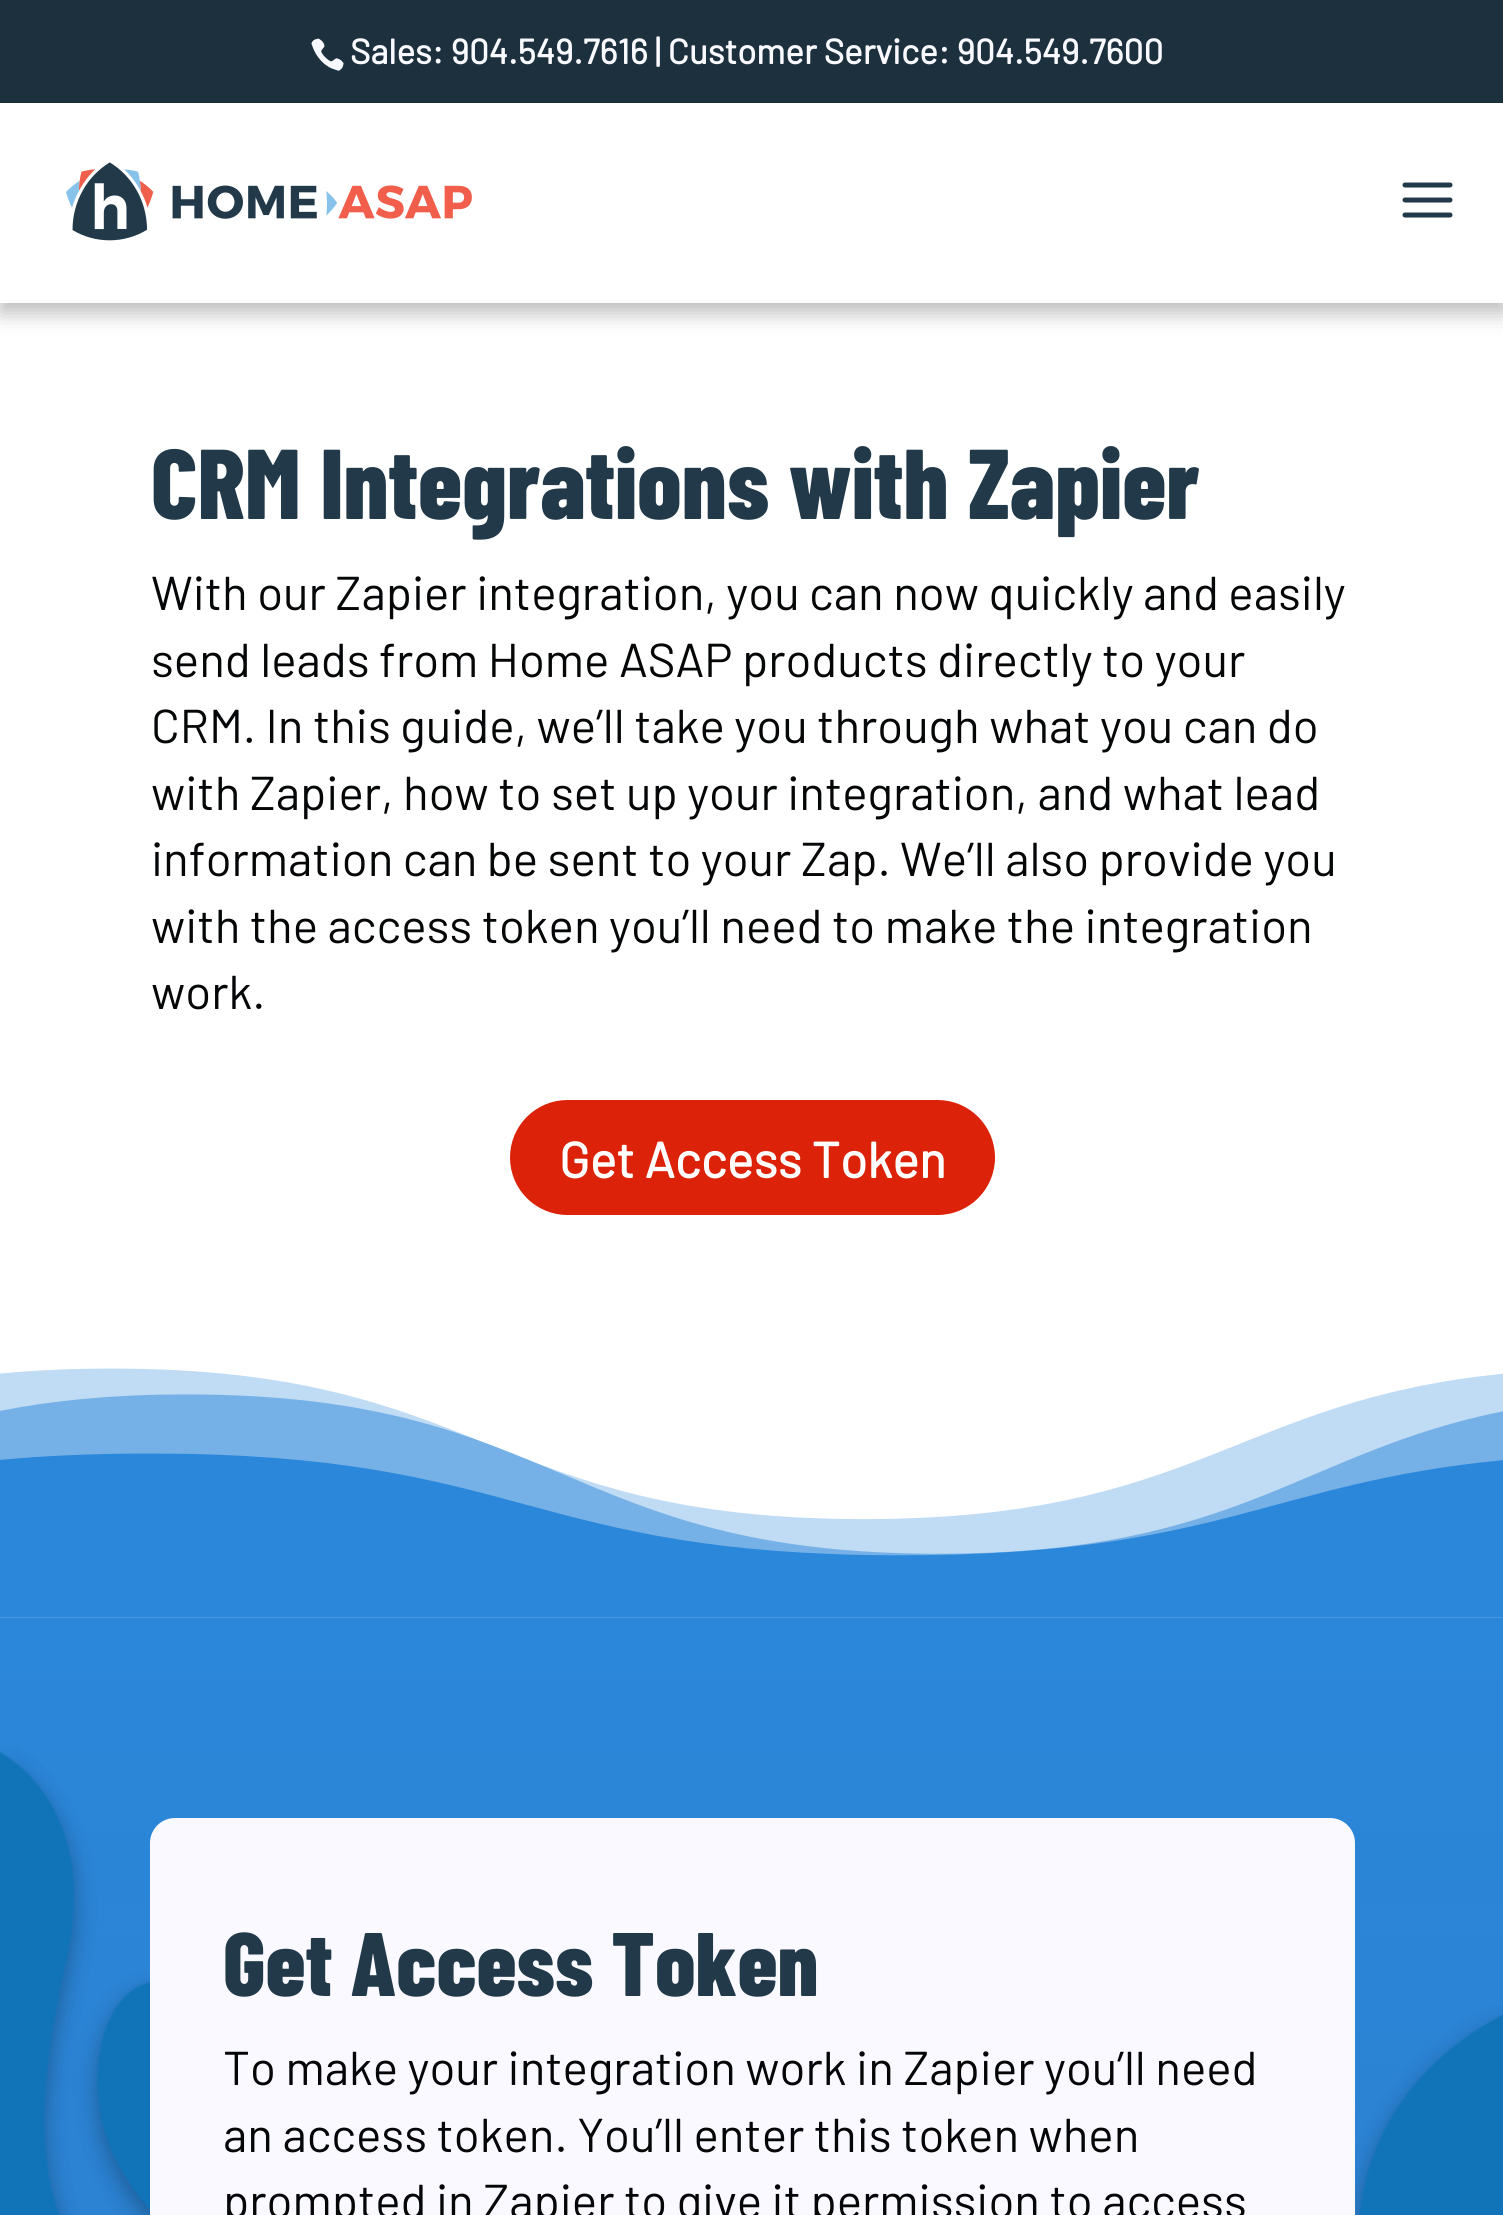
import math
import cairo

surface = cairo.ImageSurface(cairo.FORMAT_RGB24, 1503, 2215)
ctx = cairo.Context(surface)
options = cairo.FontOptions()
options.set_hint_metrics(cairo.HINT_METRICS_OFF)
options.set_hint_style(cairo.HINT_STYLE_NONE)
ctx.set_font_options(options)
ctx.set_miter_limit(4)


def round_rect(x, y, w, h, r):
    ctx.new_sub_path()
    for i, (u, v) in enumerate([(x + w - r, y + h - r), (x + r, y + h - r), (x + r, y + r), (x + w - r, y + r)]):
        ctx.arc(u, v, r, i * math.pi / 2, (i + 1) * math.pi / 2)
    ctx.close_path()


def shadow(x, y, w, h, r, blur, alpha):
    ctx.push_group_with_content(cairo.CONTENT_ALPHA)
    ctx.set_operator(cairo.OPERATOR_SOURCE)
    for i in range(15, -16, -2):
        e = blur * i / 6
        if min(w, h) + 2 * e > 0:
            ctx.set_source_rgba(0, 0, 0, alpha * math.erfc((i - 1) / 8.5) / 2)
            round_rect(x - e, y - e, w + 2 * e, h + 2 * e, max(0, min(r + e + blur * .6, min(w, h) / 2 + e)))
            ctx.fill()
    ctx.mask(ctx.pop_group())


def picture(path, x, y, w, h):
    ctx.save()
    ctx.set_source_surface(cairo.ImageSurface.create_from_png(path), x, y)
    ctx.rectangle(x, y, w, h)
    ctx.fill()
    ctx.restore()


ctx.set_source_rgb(1, 1, 1)
ctx.paint()
ctx.set_source_rgb(0.11, 0.192, 0.239)
ctx.rectangle(0, 0, 1503, 103)
ctx.fill()
picture("img1.png", 311, 38, 33, 33)
ctx.select_font_face("Barlow", cairo.FONT_SLANT_NORMAL, cairo.FONT_WEIGHT_BOLD)
ctx.set_font_size(35)
ctx.set_source_rgb(0.973, 0.976, 1)
ctx.move_to(350, 64)
ctx.show_text("Sales: 904.549.7616 | Customer Service: 904.549.7600")
ctx.set_source_rgb(0.122, 0.122, 0.122)
shadow(0, 113, 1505, 200, 0, 10, 0.3)
ctx.set_source_rgb(1, 1, 1)
ctx.rectangle(0, 103, 1503, 200)
ctx.fill()
picture("img2.png", 66, 162, 406, 79)
picture("img3.png", 1402, 182, 51, 36)
ctx.select_font_face("Barlow Condensed ExtraBold")
ctx.set_font_size(99)
ctx.set_source_rgb(0.133, 0.224, 0.286)
ctx.move_to(151, 519)
ctx.show_text("CRM Integrations with Zapier")
ctx.select_font_face("Barlow")
ctx.set_font_size(47.5)
ctx.set_source_rgb(0.016, 0.024, 0.031)
ctx.move_to(151, 610)
ctx.show_text("With our Zapier integration, you can now quickly and easily")
ctx.move_to(151, 677)
ctx.show_text("send leads from Home ASAP products directly to your")
ctx.move_to(151, 743)
ctx.show_text("CRM. In this guide, we’ll take you through what you can do")
ctx.move_to(151, 810)
ctx.show_text("with Zapier, how to set up your integration, and what lead")
ctx.move_to(151, 876)
ctx.show_text("information can be sent to your Zap. We’ll also provide you")
ctx.move_to(151, 943)
ctx.show_text("with the access token you’ll need to make the integration")
ctx.move_to(151, 1009)
ctx.show_text("work.")
ctx.set_source_rgb(0.863, 0.133, 0.035)
round_rect(510, 1100, 485, 115, 57.5)
ctx.fill()
ctx.select_font_face("Barlow", cairo.FONT_SLANT_NORMAL, cairo.FONT_WEIGHT_BOLD)
ctx.set_font_size(50)
ctx.set_source_rgb(1, 1, 1)
ctx.move_to(559, 1178)
ctx.show_text("Get Access Token")
picture("img5.png", 0, 1617, 1503, 598)
picture("img4.png", 0, 1368, 1503, 250)
ctx.set_source_rgb(0.973, 0.976, 1)
round_rect(150, 1818, 1205, 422, 25)
ctx.fill()
ctx.select_font_face("Barlow Condensed ExtraBold")
ctx.set_font_size(90)
ctx.set_source_rgb(0.133, 0.224, 0.286)
ctx.move_to(223, 1996)
ctx.show_text("Get Access Token")
ctx.select_font_face("Barlow")
ctx.set_font_size(47.5)
ctx.set_source_rgb(0.016, 0.024, 0.031)
ctx.move_to(223, 2085)
ctx.show_text("To make your integration work in Zapier you’ll need")
ctx.move_to(223, 2152)
ctx.show_text("an access token. You’ll enter this token when")
ctx.move_to(223, 2218)
ctx.show_text("prompted in Zapier to give it permission to access")
surface.write_to_png("page.png")
